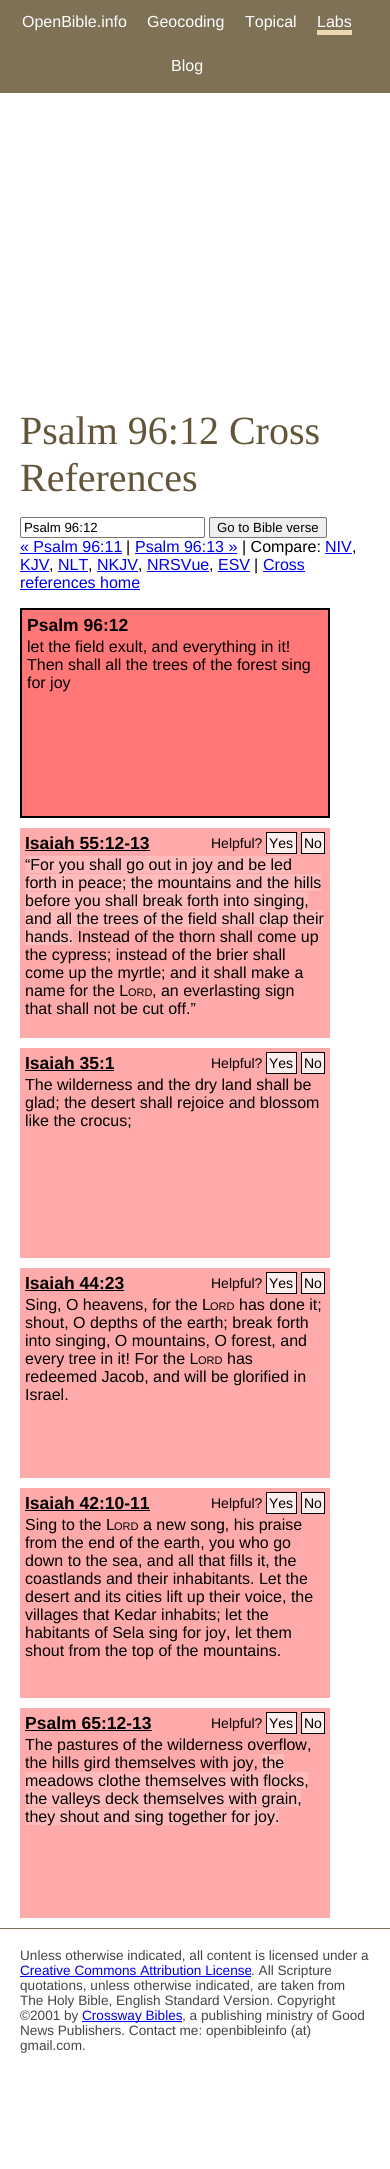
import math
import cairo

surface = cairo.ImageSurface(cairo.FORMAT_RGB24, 390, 2169)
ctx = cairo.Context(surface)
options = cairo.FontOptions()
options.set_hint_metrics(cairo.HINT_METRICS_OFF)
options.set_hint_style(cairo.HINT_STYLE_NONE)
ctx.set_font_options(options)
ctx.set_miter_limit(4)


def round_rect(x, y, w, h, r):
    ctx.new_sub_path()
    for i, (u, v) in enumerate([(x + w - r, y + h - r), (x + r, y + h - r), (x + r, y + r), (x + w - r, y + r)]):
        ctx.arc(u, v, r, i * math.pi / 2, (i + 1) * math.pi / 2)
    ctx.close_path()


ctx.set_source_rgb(1, 1, 1)
ctx.paint()
ctx.set_source_rgb(0.494, 0.443, 0.337)
ctx.rectangle(0, 0, 390, 93)
ctx.fill()
ctx.select_font_face("Liberation Sans")
ctx.set_font_size(16)
ctx.set_source_rgb(1, 1, 1)
ctx.move_to(22, 27)
ctx.show_text("OpenBible.info")
ctx.move_to(147, 27)
ctx.show_text("Geocoding")
ctx.move_to(245, 27)
ctx.show_text("Topical")
ctx.move_to(317, 27)
ctx.show_text("Labs")
ctx.set_source_rgb(0.922, 0.847, 0.686)
ctx.rectangle(317, 30, 35, 5)
ctx.fill()
ctx.set_source_rgb(1, 1, 1)
ctx.move_to(171, 71)
ctx.show_text("Blog")
ctx.select_font_face("Liberation Serif")
ctx.set_font_size(40)
ctx.set_source_rgb(0.384, 0.333, 0.224)
ctx.move_to(20, 444)
ctx.show_text("Psalm 96:12 Cross")
ctx.move_to(20, 491)
ctx.show_text("References")
round_rect(20.5, 517.5, 184, 20, 1.5)
ctx.set_source_rgb(0.463, 0.463, 0.463)
ctx.set_line_width(1)
ctx.stroke()
ctx.select_font_face("Liberation Sans")
ctx.set_font_size(13.25)
ctx.set_source_rgb(0, 0, 0)
ctx.move_to(24, 532)
ctx.show_text("Psalm 96:12")
ctx.set_source_rgb(0.937, 0.937, 0.937)
round_rect(209.5, 517.5, 117, 20, 1.5)
ctx.fill_preserve()
ctx.set_source_rgb(0.463, 0.463, 0.463)
ctx.stroke()
ctx.set_source_rgb(0, 0, 0)
ctx.move_to(217, 532)
ctx.show_text("Go to Bible verse")
ctx.set_font_size(16)
ctx.set_source_rgb(0, 0, 0.933)
ctx.move_to(20, 552)
ctx.show_text("« Psalm 96:11")
ctx.rectangle(20, 553, 102, 1)
ctx.fill()
ctx.set_source_rgb(0, 0, 0)
ctx.move_to(126, 552)
ctx.show_text("|")
ctx.set_source_rgb(0, 0, 0.933)
ctx.move_to(135, 552)
ctx.show_text("Psalm 96:13 »")
ctx.rectangle(135, 553, 102, 1)
ctx.fill()
ctx.set_source_rgb(0, 0, 0)
ctx.move_to(242, 552)
ctx.show_text("| Compare:")
ctx.set_source_rgb(0, 0, 0.933)
ctx.move_to(325, 552)
ctx.show_text("NIV")
ctx.rectangle(325, 553, 27, 1)
ctx.fill()
ctx.set_source_rgb(0, 0, 0)
ctx.move_to(352, 552)
ctx.show_text(",")
ctx.set_source_rgb(0, 0, 0.933)
ctx.move_to(20, 570)
ctx.show_text("KJV")
ctx.rectangle(20, 571, 29, 1)
ctx.fill()
ctx.set_source_rgb(0, 0, 0)
ctx.move_to(49, 570)
ctx.show_text(",")
ctx.set_source_rgb(0, 0, 0.933)
ctx.move_to(58, 570)
ctx.show_text("NLT")
ctx.rectangle(58, 571, 30, 1)
ctx.fill()
ctx.set_source_rgb(0, 0, 0)
ctx.move_to(88, 570)
ctx.show_text(",")
ctx.set_source_rgb(0, 0, 0.933)
ctx.move_to(97, 570)
ctx.show_text("NKJV")
ctx.rectangle(97, 571, 41, 1)
ctx.fill()
ctx.set_source_rgb(0, 0, 0)
ctx.move_to(138, 570)
ctx.show_text(",")
ctx.set_source_rgb(0, 0, 0.933)
ctx.move_to(147, 570)
ctx.show_text("NRSVue")
ctx.rectangle(147, 571, 62, 1)
ctx.fill()
ctx.set_source_rgb(0, 0, 0)
ctx.move_to(209, 570)
ctx.show_text(",")
ctx.set_source_rgb(0, 0, 0.933)
ctx.move_to(218, 570)
ctx.show_text("ESV")
ctx.rectangle(218, 571, 32, 1)
ctx.fill()
ctx.set_source_rgb(0, 0, 0)
ctx.move_to(254, 570)
ctx.show_text("|")
ctx.set_source_rgb(0, 0, 0.933)
ctx.move_to(263, 570)
ctx.show_text("Cross")
ctx.rectangle(263, 571, 42, 1)
ctx.fill()
ctx.move_to(20, 588)
ctx.show_text("references home")
ctx.rectangle(20, 589, 120, 1)
ctx.fill()
ctx.set_source_rgb(1, 0.467, 0.467)
ctx.rectangle(21, 609, 308, 208)
ctx.fill_preserve()
ctx.set_source_rgb(0, 0, 0)
ctx.set_line_width(2)
ctx.stroke()
ctx.select_font_face("Liberation Sans", cairo.FONT_SLANT_NORMAL, cairo.FONT_WEIGHT_BOLD)
ctx.set_font_size(17.5)
ctx.move_to(27, 631)
ctx.show_text("Psalm 96:12")
ctx.select_font_face("Liberation Sans")
ctx.set_font_size(16)
ctx.move_to(27, 652)
ctx.show_text("let the field exult, and everything in it!")
ctx.move_to(27, 670)
ctx.show_text("Then shall all the trees of the forest sing")
ctx.move_to(27, 688)
ctx.show_text("for joy")
ctx.set_source_rgb(1, 0.667, 0.667)
ctx.rectangle(20, 828, 310, 210)
ctx.fill()
ctx.select_font_face("Liberation Sans", cairo.FONT_SLANT_NORMAL, cairo.FONT_WEIGHT_BOLD)
ctx.set_font_size(17.5)
ctx.set_source_rgb(0, 0, 0)
ctx.move_to(25, 849)
ctx.show_text("Isaiah 55:12-13")
ctx.rectangle(25, 850, 125, 1)
ctx.fill()
ctx.select_font_face("Liberation Sans")
ctx.set_font_size(14)
ctx.move_to(211, 848)
ctx.show_text("Helpful?")
ctx.set_source_rgb(1, 0.933, 0.933)
ctx.rectangle(266.5, 832.5, 30, 21)
ctx.fill_preserve()
ctx.set_source_rgb(0, 0, 0)
ctx.set_line_width(1)
ctx.stroke()
ctx.move_to(269, 848)
ctx.show_text("Yes")
ctx.set_source_rgb(1, 0.933, 0.933)
ctx.rectangle(301.5, 832.5, 23, 21)
ctx.fill_preserve()
ctx.set_source_rgb(0, 0, 0)
ctx.stroke()
ctx.move_to(304, 848)
ctx.show_text("No")
ctx.set_source_rgb(1, 0.733, 0.733)
ctx.rectangle(25, 856, 266, 17)
ctx.fill()
ctx.set_font_size(16)
ctx.set_source_rgb(0, 0, 0)
ctx.move_to(25, 870)
ctx.show_text("“For you shall go out in joy and be led")
ctx.set_source_rgb(1, 0.733, 0.733)
ctx.rectangle(25, 874, 296, 17)
ctx.fill()
ctx.set_source_rgb(0, 0, 0)
ctx.move_to(25, 888)
ctx.show_text("forth in peace; the mountains and the hills")
ctx.set_source_rgb(1, 0.733, 0.733)
ctx.rectangle(25, 892, 283, 17)
ctx.fill()
ctx.set_source_rgb(0, 0, 0)
ctx.move_to(25, 906)
ctx.show_text("before you shall break forth into singing,")
ctx.set_source_rgb(1, 0.733, 0.733)
ctx.rectangle(25, 910, 298, 17)
ctx.fill()
ctx.set_source_rgb(0, 0, 0)
ctx.move_to(25, 924)
ctx.show_text("and all the trees of the field shall clap their")
ctx.set_source_rgb(1, 0.733, 0.733)
ctx.rectangle(25, 928, 48, 17)
ctx.fill()
ctx.set_source_rgb(0, 0, 0)
ctx.move_to(25, 942)
ctx.show_text("hands. Instead of the thorn shall come up")
ctx.move_to(25, 960)
ctx.show_text("the cypress; instead of the brier shall")
ctx.move_to(25, 978)
ctx.show_text("come up the myrtle; and it shall make a")
ctx.move_to(25, 996)
ctx.show_text("name for the L")
ctx.set_font_size(11)
ctx.move_to(128, 996)
ctx.show_text("ORD")
ctx.set_font_size(16)
ctx.move_to(152, 996)
ctx.show_text(", an everlasting sign")
ctx.move_to(25, 1014)
ctx.show_text("that shall not be cut off.”")
ctx.set_source_rgb(1, 0.667, 0.667)
ctx.rectangle(20, 1048, 310, 210)
ctx.fill()
ctx.select_font_face("Liberation Sans", cairo.FONT_SLANT_NORMAL, cairo.FONT_WEIGHT_BOLD)
ctx.set_font_size(17.5)
ctx.set_source_rgb(0, 0, 0)
ctx.move_to(25, 1069)
ctx.show_text("Isaiah 35:1")
ctx.rectangle(25, 1070, 89, 1)
ctx.fill()
ctx.select_font_face("Liberation Sans")
ctx.set_font_size(14)
ctx.move_to(211, 1068)
ctx.show_text("Helpful?")
ctx.set_source_rgb(1, 0.933, 0.933)
ctx.rectangle(266.5, 1052.5, 30, 21)
ctx.fill_preserve()
ctx.set_source_rgb(0, 0, 0)
ctx.stroke()
ctx.move_to(269, 1068)
ctx.show_text("Yes")
ctx.set_source_rgb(1, 0.933, 0.933)
ctx.rectangle(301.5, 1052.5, 23, 21)
ctx.fill_preserve()
ctx.set_source_rgb(0, 0, 0)
ctx.stroke()
ctx.move_to(304, 1068)
ctx.show_text("No")
ctx.set_font_size(16)
ctx.move_to(25, 1090)
ctx.show_text("The wilderness and the dry land shall be")
ctx.move_to(25, 1108)
ctx.show_text("glad; the desert shall rejoice and blossom")
ctx.move_to(25, 1126)
ctx.show_text("like the crocus;")
ctx.set_source_rgb(1, 0.667, 0.667)
ctx.rectangle(20, 1268, 310, 210)
ctx.fill()
ctx.select_font_face("Liberation Sans", cairo.FONT_SLANT_NORMAL, cairo.FONT_WEIGHT_BOLD)
ctx.set_font_size(17.5)
ctx.set_source_rgb(0, 0, 0)
ctx.move_to(25, 1289)
ctx.show_text("Isaiah 44:23")
ctx.rectangle(25, 1290, 99, 1)
ctx.fill()
ctx.select_font_face("Liberation Sans")
ctx.set_font_size(14)
ctx.move_to(211, 1288)
ctx.show_text("Helpful?")
ctx.set_source_rgb(1, 0.933, 0.933)
ctx.rectangle(266.5, 1272.5, 30, 21)
ctx.fill_preserve()
ctx.set_source_rgb(0, 0, 0)
ctx.stroke()
ctx.move_to(269, 1288)
ctx.show_text("Yes")
ctx.set_source_rgb(1, 0.933, 0.933)
ctx.rectangle(301.5, 1272.5, 23, 21)
ctx.fill_preserve()
ctx.set_source_rgb(0, 0, 0)
ctx.stroke()
ctx.move_to(304, 1288)
ctx.show_text("No")
ctx.set_font_size(16)
ctx.move_to(25, 1310)
ctx.show_text("Sing, O heavens, for the L")
ctx.set_font_size(11)
ctx.move_to(210, 1310)
ctx.show_text("ORD")
ctx.set_font_size(16)
ctx.move_to(239, 1310)
ctx.show_text("has done it;")
ctx.move_to(25, 1328)
ctx.show_text("shout, O depths of the earth; break forth")
ctx.move_to(25, 1346)
ctx.show_text("into singing, O mountains, O forest, and")
ctx.move_to(25, 1364)
ctx.show_text("every tree in it! For the L")
ctx.set_font_size(11)
ctx.move_to(198, 1364)
ctx.show_text("ORD")
ctx.set_font_size(16)
ctx.move_to(227, 1364)
ctx.show_text("has")
ctx.move_to(25, 1382)
ctx.show_text("redeemed Jacob, and will be glorified in")
ctx.move_to(25, 1400)
ctx.show_text("Israel.")
ctx.set_source_rgb(1, 0.667, 0.667)
ctx.rectangle(20, 1488, 310, 210)
ctx.fill()
ctx.select_font_face("Liberation Sans", cairo.FONT_SLANT_NORMAL, cairo.FONT_WEIGHT_BOLD)
ctx.set_font_size(17.5)
ctx.set_source_rgb(0, 0, 0)
ctx.move_to(25, 1509)
ctx.show_text("Isaiah 42:10-11")
ctx.rectangle(25, 1510, 125, 1)
ctx.fill()
ctx.select_font_face("Liberation Sans")
ctx.set_font_size(14)
ctx.move_to(211, 1508)
ctx.show_text("Helpful?")
ctx.set_source_rgb(1, 0.933, 0.933)
ctx.rectangle(266.5, 1492.5, 30, 21)
ctx.fill_preserve()
ctx.set_source_rgb(0, 0, 0)
ctx.stroke()
ctx.move_to(269, 1508)
ctx.show_text("Yes")
ctx.set_source_rgb(1, 0.933, 0.933)
ctx.rectangle(301.5, 1492.5, 23, 21)
ctx.fill_preserve()
ctx.set_source_rgb(0, 0, 0)
ctx.stroke()
ctx.move_to(304, 1508)
ctx.show_text("No")
ctx.set_font_size(16)
ctx.move_to(25, 1530)
ctx.show_text("Sing to the L")
ctx.set_font_size(11)
ctx.move_to(114, 1530)
ctx.show_text("ORD")
ctx.set_font_size(16)
ctx.move_to(143, 1530)
ctx.show_text("a new song, his praise")
ctx.move_to(25, 1548)
ctx.show_text("from the end of the earth, you who go")
ctx.move_to(25, 1566)
ctx.show_text("down to the sea, and all that fills it, the")
ctx.move_to(25, 1584)
ctx.show_text("coastlands and their inhabitants. Let the")
ctx.move_to(25, 1602)
ctx.show_text("desert and its cities lift up their voice, the")
ctx.move_to(25, 1620)
ctx.show_text("villages that Kedar inhabits; let the")
ctx.move_to(25, 1638)
ctx.show_text("habitants of Sela sing for joy, let them")
ctx.move_to(25, 1656)
ctx.show_text("shout from the top of the mountains.")
ctx.set_source_rgb(1, 0.667, 0.667)
ctx.rectangle(20, 1708, 310, 210)
ctx.fill()
ctx.select_font_face("Liberation Sans", cairo.FONT_SLANT_NORMAL, cairo.FONT_WEIGHT_BOLD)
ctx.set_font_size(17.5)
ctx.set_source_rgb(0, 0, 0)
ctx.move_to(25, 1729)
ctx.show_text("Psalm 65:12-13")
ctx.rectangle(25, 1730, 127, 1)
ctx.fill()
ctx.select_font_face("Liberation Sans")
ctx.set_font_size(14)
ctx.move_to(211, 1728)
ctx.show_text("Helpful?")
ctx.set_source_rgb(1, 0.933, 0.933)
ctx.rectangle(266.5, 1712.5, 30, 21)
ctx.fill_preserve()
ctx.set_source_rgb(0, 0, 0)
ctx.stroke()
ctx.move_to(269, 1728)
ctx.show_text("Yes")
ctx.set_source_rgb(1, 0.933, 0.933)
ctx.rectangle(301.5, 1712.5, 23, 21)
ctx.fill_preserve()
ctx.set_source_rgb(0, 0, 0)
ctx.stroke()
ctx.move_to(304, 1728)
ctx.show_text("No")
ctx.set_font_size(16)
ctx.move_to(25, 1750)
ctx.show_text("The pastures of the wilderness overflow,")
ctx.move_to(25, 1768)
ctx.show_text("the hills gird themselves with joy,")
ctx.set_source_rgb(1, 0.733, 0.733)
ctx.rectangle(262, 1754, 22, 17)
ctx.fill()
ctx.set_source_rgb(0, 0, 0)
ctx.move_to(262, 1768)
ctx.show_text("the")
ctx.set_source_rgb(1, 0.733, 0.733)
ctx.rectangle(25, 1772, 283, 17)
ctx.fill()
ctx.set_source_rgb(0, 0, 0)
ctx.move_to(25, 1786)
ctx.show_text("meadows clothe themselves with flocks,")
ctx.set_source_rgb(1, 0.733, 0.733)
ctx.rectangle(25, 1790, 276, 17)
ctx.fill()
ctx.set_source_rgb(0, 0, 0)
ctx.move_to(25, 1804)
ctx.show_text("the valleys deck themselves with grain,")
ctx.set_source_rgb(1, 0.733, 0.733)
ctx.rectangle(25, 1808, 254, 17)
ctx.fill()
ctx.set_source_rgb(0, 0, 0)
ctx.move_to(25, 1822)
ctx.show_text("they shout and sing together for joy.")
ctx.set_source_rgb(0.494, 0.443, 0.337)
ctx.rectangle(0, 1928, 390, 1)
ctx.fill()
ctx.set_font_size(13.6)
ctx.set_source_rgb(0.267, 0.267, 0.267)
ctx.move_to(20, 1960)
ctx.show_text("Unless otherwise indicated, all content is licensed under a")
ctx.set_source_rgb(0, 0, 0.933)
ctx.move_to(20, 1975)
ctx.show_text("Creative Commons Attribution License")
ctx.rectangle(20, 1976, 231, 1)
ctx.fill()
ctx.set_source_rgb(0.267, 0.267, 0.267)
ctx.move_to(251, 1975)
ctx.show_text(". All Scripture")
ctx.move_to(20, 1990)
ctx.show_text("quotations, unless otherwise indicated, are taken from")
ctx.move_to(20, 2005)
ctx.show_text("The Holy Bible, English Standard Version. Copyright")
ctx.move_to(20, 2020)
ctx.show_text("©2001 by")
ctx.set_source_rgb(0, 0, 0.933)
ctx.rectangle(82, 2021, 100, 1)
ctx.fill()
ctx.move_to(82, 2020)
ctx.show_text("Crossway Bibles")
ctx.set_source_rgb(0.267, 0.267, 0.267)
ctx.move_to(182, 2020)
ctx.show_text(", a publishing ministry of Good")
ctx.move_to(20, 2035)
ctx.show_text("News Publishers. Contact me: openbibleinfo (at)")
ctx.move_to(20, 2050)
ctx.show_text("gmail.com.")
surface.write_to_png("page.png")
